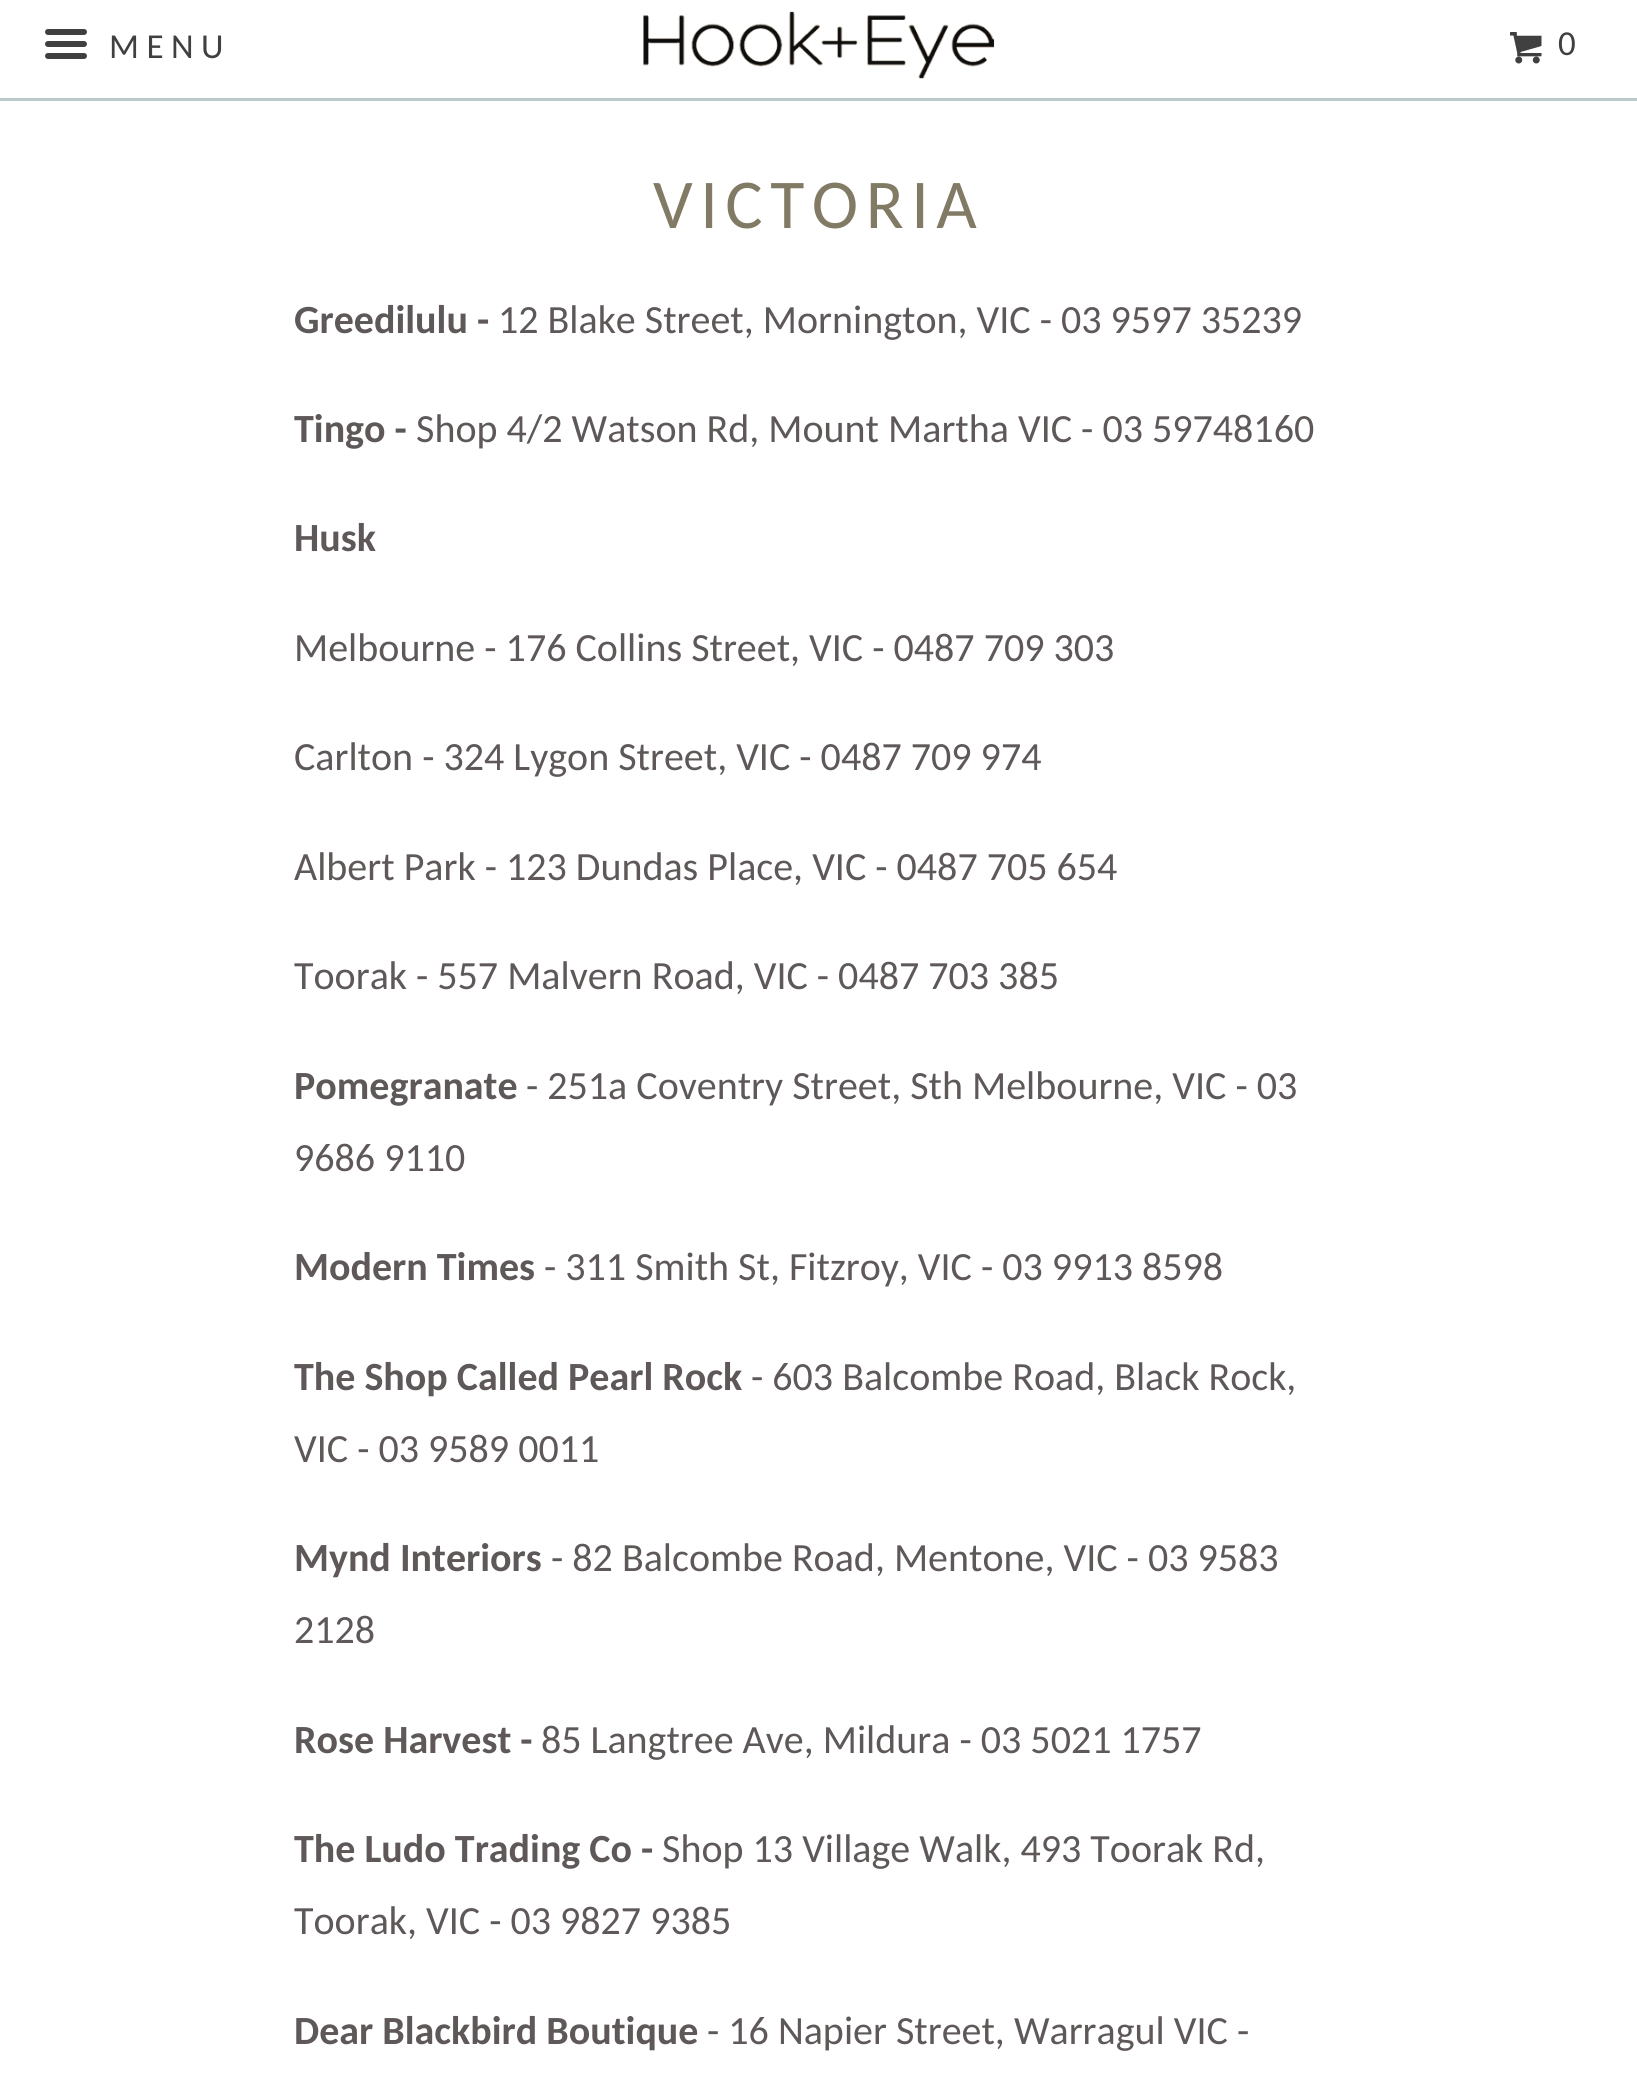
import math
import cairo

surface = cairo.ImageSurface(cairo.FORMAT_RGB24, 1637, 2076)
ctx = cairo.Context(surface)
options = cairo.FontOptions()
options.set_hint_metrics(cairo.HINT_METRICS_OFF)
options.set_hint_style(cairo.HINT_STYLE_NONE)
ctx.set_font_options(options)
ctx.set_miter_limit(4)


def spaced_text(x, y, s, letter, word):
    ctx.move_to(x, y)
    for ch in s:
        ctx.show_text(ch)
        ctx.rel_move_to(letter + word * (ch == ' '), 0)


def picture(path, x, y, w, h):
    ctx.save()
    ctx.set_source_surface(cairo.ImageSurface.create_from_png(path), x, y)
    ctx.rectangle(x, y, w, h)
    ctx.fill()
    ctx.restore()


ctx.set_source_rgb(1, 1, 1)
ctx.paint()
ctx.set_source_rgb(0.737, 0.788, 0.788)
ctx.rectangle(0, 98, 1637, 3)
ctx.fill()
picture("img1.png", 45, 29, 42, 30)
ctx.select_font_face("Carlito")
ctx.set_font_size(35)
ctx.set_source_rgb(0.251, 0.251, 0.251)
spaced_text(109, 58, "MENU", 7.5, 0)
picture("img2.png", 643, 11, 352, 68)
picture("img3.png", 1510, 32, 32, 32)
spaced_text(1558, 55, "0", 7.5, 0)
ctx.set_font_size(70)
ctx.set_source_rgb(0.506, 0.478, 0.392)
spaced_text(653, 228, "VICTORIA", 7.5, 0)
ctx.select_font_face("Carlito", cairo.FONT_SLANT_NORMAL, cairo.FONT_WEIGHT_BOLD)
ctx.set_font_size(40)
ctx.set_source_rgb(0.369, 0.345, 0.345)
ctx.move_to(294, 333)
ctx.show_text("Greedilulu -")
ctx.select_font_face("Carlito")
ctx.move_to(498, 333)
ctx.show_text("12 Blake Street, Mornington, VIC - 03 9597 35239")
ctx.select_font_face("Carlito", cairo.FONT_SLANT_NORMAL, cairo.FONT_WEIGHT_BOLD)
ctx.move_to(294, 442)
ctx.show_text("Tingo -")
ctx.select_font_face("Carlito")
ctx.move_to(416, 442)
ctx.show_text("Shop 4/2 Watson Rd, Mount Martha VIC - 03 59748160")
ctx.select_font_face("Carlito", cairo.FONT_SLANT_NORMAL, cairo.FONT_WEIGHT_BOLD)
ctx.move_to(294, 551)
ctx.show_text("Husk")
ctx.select_font_face("Carlito")
ctx.move_to(294, 661)
ctx.show_text("Melbourne - 176 Collins Street, VIC - 0487 709 303")
ctx.move_to(294, 770)
ctx.show_text("Carlton - 324 Lygon Street, VIC - 0487 709 974")
ctx.move_to(294, 880)
ctx.show_text("Albert Park - 123 Dundas Place, VIC - 0487 705 654")
ctx.move_to(294, 989)
ctx.show_text("Toorak - 557 Malvern Road, VIC - 0487 703 385")
ctx.select_font_face("Carlito", cairo.FONT_SLANT_NORMAL, cairo.FONT_WEIGHT_BOLD)
ctx.move_to(294, 1099)
ctx.show_text("Pomegranate")
ctx.select_font_face("Carlito")
ctx.move_to(526, 1099)
ctx.show_text("- 251a Coventry Street, Sth Melbourne, VIC - 03")
ctx.move_to(294, 1171)
ctx.show_text("9686 9110")
ctx.select_font_face("Carlito", cairo.FONT_SLANT_NORMAL, cairo.FONT_WEIGHT_BOLD)
ctx.move_to(294, 1280)
ctx.show_text("Modern Times")
ctx.select_font_face("Carlito")
ctx.move_to(544, 1280)
ctx.show_text("- 311 Smith St, Fitzroy, VIC - 03 9913 8598")
ctx.select_font_face("Carlito", cairo.FONT_SLANT_NORMAL, cairo.FONT_WEIGHT_BOLD)
ctx.move_to(294, 1390)
ctx.show_text("The Shop Called Pearl Rock")
ctx.select_font_face("Carlito")
ctx.move_to(751, 1390)
ctx.show_text("- 603 Balcombe Road, Black Rock,")
ctx.move_to(294, 1462)
ctx.show_text("VIC - 03 9589 0011")
ctx.select_font_face("Carlito", cairo.FONT_SLANT_NORMAL, cairo.FONT_WEIGHT_BOLD)
ctx.move_to(294, 1571)
ctx.show_text("Mynd Interiors")
ctx.select_font_face("Carlito")
ctx.move_to(551, 1571)
ctx.show_text("- 82 Balcombe Road, Mentone, VIC - 03 9583")
ctx.move_to(294, 1643)
ctx.show_text("2128")
ctx.select_font_face("Carlito", cairo.FONT_SLANT_NORMAL, cairo.FONT_WEIGHT_BOLD)
ctx.move_to(294, 1753)
ctx.show_text("Rose Harvest -")
ctx.select_font_face("Carlito")
ctx.move_to(541, 1753)
ctx.show_text("85 Langtree Ave, Mildura - 03 5021 1757")
ctx.select_font_face("Carlito", cairo.FONT_SLANT_NORMAL, cairo.FONT_WEIGHT_BOLD)
ctx.move_to(294, 1862)
ctx.show_text("The Ludo Trading Co -")
ctx.select_font_face("Carlito")
ctx.move_to(662, 1862)
ctx.show_text("Shop 13 Village Walk, 493 Toorak Rd,")
ctx.move_to(294, 1934)
ctx.show_text("Toorak, VIC - 03 9827 9385")
ctx.select_font_face("Carlito", cairo.FONT_SLANT_NORMAL, cairo.FONT_WEIGHT_BOLD)
ctx.move_to(294, 2044)
ctx.show_text("Dear Blackbird Boutique")
ctx.select_font_face("Carlito")
ctx.move_to(707, 2044)
ctx.show_text("- 16 Napier Street, Warragul VIC -")
surface.write_to_png("page.png")
